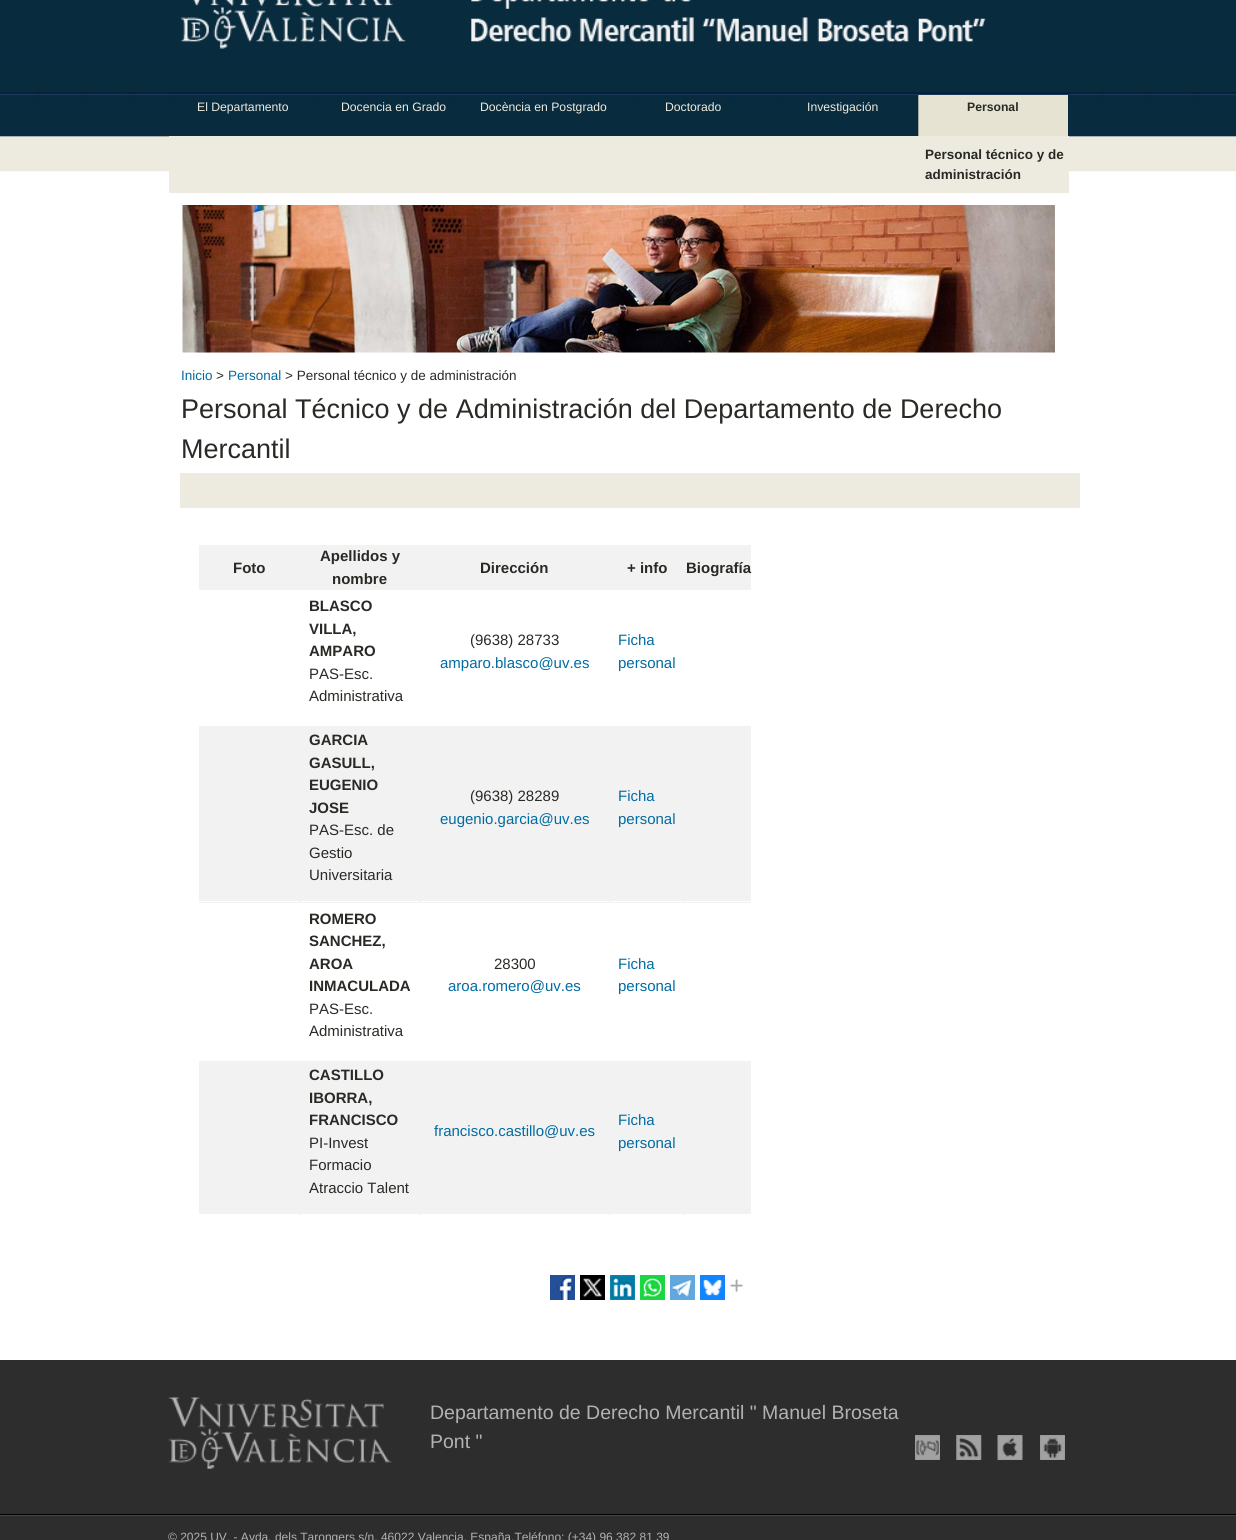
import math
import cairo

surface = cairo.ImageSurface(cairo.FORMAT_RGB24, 1236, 1540)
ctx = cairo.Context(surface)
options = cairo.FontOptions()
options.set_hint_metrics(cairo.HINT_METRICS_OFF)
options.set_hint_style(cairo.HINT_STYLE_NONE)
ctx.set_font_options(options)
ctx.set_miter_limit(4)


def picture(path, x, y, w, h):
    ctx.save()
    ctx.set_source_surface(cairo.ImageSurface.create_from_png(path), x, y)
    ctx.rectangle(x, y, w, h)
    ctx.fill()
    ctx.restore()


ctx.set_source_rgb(1, 1, 1)
ctx.paint()
picture("img1.png", 0, 0, 1236, 172)
ctx.set_source_rgb(0.031, 0.169, 0.243)
ctx.rectangle(169, 92, 900, 2)
ctx.fill()
picture("img2.png", 169, 92, 900, 2)
picture("img3.png", 180, 0, 806, 49)
ctx.rectangle(169, 95, 900, 1)
ctx.fill()
ctx.set_source_rgb(0.102, 0.231, 0.353)
ctx.rectangle(169, 94, 900, 1)
ctx.fill()
ctx.select_font_face("Liberation Sans")
ctx.set_font_size(12.2)
ctx.set_source_rgb(0.929, 0.918, 0.875)
ctx.move_to(197, 111)
ctx.show_text("El Departamento")
ctx.move_to(341, 111)
ctx.show_text("Docencia en Grado")
ctx.move_to(480, 111)
ctx.show_text("Docència en Postgrado")
ctx.move_to(665, 111)
ctx.show_text("Doctorado")
ctx.move_to(807, 111)
ctx.show_text("Investigación")
ctx.set_source_rgb(0.902, 0.89, 0.824)
ctx.rectangle(919, 95, 149, 41)
ctx.fill()
ctx.set_source_rgb(0.651, 0.651, 0.612)
ctx.rectangle(918, 95, 1, 41)
ctx.fill()
ctx.select_font_face("Liberation Sans", cairo.FONT_SLANT_NORMAL, cairo.FONT_WEIGHT_BOLD)
ctx.set_source_rgb(0.161, 0.165, 0.145)
ctx.move_to(967, 111)
ctx.show_text("Personal")
ctx.set_source_rgb(0.929, 0.918, 0.875)
ctx.rectangle(169, 136, 900, 57)
ctx.fill()
ctx.set_font_size(13.5)
ctx.set_source_rgb(0.161, 0.165, 0.145)
ctx.move_to(925, 159)
ctx.show_text("Personal técnico y de")
ctx.move_to(925, 179)
ctx.show_text("administración")
picture("img4.png", 182, 205, 873, 148)
ctx.select_font_face("Liberation Sans")
ctx.set_source_rgb(0.004, 0.424, 0.635)
ctx.move_to(181, 380)
ctx.show_text("Inicio")
ctx.set_source_rgb(0.161, 0.165, 0.145)
ctx.move_to(216, 380)
ctx.show_text(">")
ctx.set_source_rgb(0.004, 0.424, 0.635)
ctx.move_to(228, 380)
ctx.show_text("Personal")
ctx.set_source_rgb(0.161, 0.165, 0.145)
ctx.move_to(285, 380)
ctx.show_text("> Personal técnico y de administración")
ctx.set_font_size(27)
ctx.move_to(181, 418)
ctx.show_text("Personal Técnico y de Administración del Departamento de Derecho")
ctx.move_to(181, 458)
ctx.show_text("Mercantil")
ctx.set_source_rgb(0.929, 0.918, 0.875)
ctx.rectangle(180, 473, 900, 35)
ctx.fill()
ctx.set_source_rgb(0.949, 0.949, 0.949)
ctx.rectangle(199, 545, 552, 45)
ctx.fill()
ctx.select_font_face("Liberation Sans", cairo.FONT_SLANT_NORMAL, cairo.FONT_WEIGHT_BOLD)
ctx.set_font_size(15)
ctx.set_source_rgb(0.161, 0.165, 0.145)
ctx.move_to(233, 573)
ctx.show_text("Foto")
ctx.move_to(320, 561)
ctx.show_text("Apellidos y")
ctx.move_to(332, 584)
ctx.show_text("nombre")
ctx.move_to(480, 573)
ctx.show_text("Dirección")
ctx.move_to(627, 573)
ctx.show_text("+ info")
ctx.move_to(686, 573)
ctx.show_text("Biografía")
ctx.move_to(309, 611)
ctx.show_text("BLASCO")
ctx.move_to(309, 634)
ctx.show_text("VILLA,")
ctx.move_to(309, 656)
ctx.show_text("AMPARO")
ctx.select_font_face("Liberation Sans")
ctx.move_to(309, 679)
ctx.show_text("PAS-Esc.")
ctx.move_to(309, 701)
ctx.show_text("Administrativa")
ctx.move_to(470, 645)
ctx.show_text("(9638) 28733")
ctx.set_source_rgb(0.004, 0.424, 0.635)
ctx.move_to(440, 668)
ctx.show_text("amparo.blasco@uv.es")
ctx.move_to(618, 645)
ctx.show_text("Ficha")
ctx.move_to(618, 668)
ctx.show_text("personal")
ctx.set_source_rgb(0.949, 0.949, 0.949)
ctx.rectangle(199, 726, 552, 177)
ctx.fill()
ctx.set_source_rgb(1, 1, 1)
ctx.rectangle(301, 901, 118, 1)
ctx.fill()
ctx.select_font_face("Liberation Sans", cairo.FONT_SLANT_NORMAL, cairo.FONT_WEIGHT_BOLD)
ctx.set_source_rgb(0.161, 0.165, 0.145)
ctx.move_to(309, 745)
ctx.show_text("GARCIA")
ctx.move_to(309, 768)
ctx.show_text("GASULL,")
ctx.move_to(309, 790)
ctx.show_text("EUGENIO")
ctx.move_to(309, 813)
ctx.show_text("JOSE")
ctx.select_font_face("Liberation Sans")
ctx.move_to(309, 835)
ctx.show_text("PAS-Esc. de")
ctx.move_to(309, 858)
ctx.show_text("Gestio")
ctx.move_to(309, 880)
ctx.show_text("Universitaria")
ctx.set_source_rgb(1, 1, 1)
ctx.rectangle(421, 901, 188, 1)
ctx.fill()
ctx.set_source_rgb(0.161, 0.165, 0.145)
ctx.move_to(470, 801)
ctx.show_text("(9638) 28289")
ctx.set_source_rgb(0.004, 0.424, 0.635)
ctx.move_to(440, 824)
ctx.show_text("eugenio.garcia@uv.es")
ctx.set_source_rgb(1, 1, 1)
ctx.rectangle(611, 901, 73, 1)
ctx.fill()
ctx.set_source_rgb(0.004, 0.424, 0.635)
ctx.move_to(618, 801)
ctx.show_text("Ficha")
ctx.move_to(618, 824)
ctx.show_text("personal")
ctx.set_source_rgb(1, 1, 1)
ctx.rectangle(199, 901, 100, 1)
ctx.fill()
ctx.rectangle(686, 901, 65, 1)
ctx.fill()
ctx.select_font_face("Liberation Sans", cairo.FONT_SLANT_NORMAL, cairo.FONT_WEIGHT_BOLD)
ctx.set_source_rgb(0.161, 0.165, 0.145)
ctx.move_to(309, 924)
ctx.show_text("ROMERO")
ctx.move_to(309, 946)
ctx.show_text("SANCHEZ,")
ctx.move_to(309, 969)
ctx.show_text("AROA")
ctx.move_to(309, 991)
ctx.show_text("INMACULADA")
ctx.select_font_face("Liberation Sans")
ctx.move_to(309, 1014)
ctx.show_text("PAS-Esc.")
ctx.move_to(309, 1036)
ctx.show_text("Administrativa")
ctx.move_to(494, 969)
ctx.show_text("28300")
ctx.set_source_rgb(0.004, 0.424, 0.635)
ctx.move_to(448, 991)
ctx.show_text("aroa.romero@uv.es")
ctx.move_to(618, 969)
ctx.show_text("Ficha")
ctx.move_to(618, 991)
ctx.show_text("personal")
ctx.set_source_rgb(0.949, 0.949, 0.949)
ctx.rectangle(199, 1061, 552, 154)
ctx.fill()
ctx.set_source_rgb(1, 1, 1)
ctx.rectangle(301, 1214, 118, 1)
ctx.fill()
ctx.select_font_face("Liberation Sans", cairo.FONT_SLANT_NORMAL, cairo.FONT_WEIGHT_BOLD)
ctx.set_source_rgb(0.161, 0.165, 0.145)
ctx.move_to(309, 1080)
ctx.show_text("CASTILLO")
ctx.move_to(309, 1103)
ctx.show_text("IBORRA,")
ctx.move_to(309, 1125)
ctx.show_text("FRANCISCO")
ctx.select_font_face("Liberation Sans")
ctx.move_to(309, 1148)
ctx.show_text("PI-Invest")
ctx.move_to(309, 1170)
ctx.show_text("Formacio")
ctx.move_to(309, 1193)
ctx.show_text("Atraccio Talent")
ctx.set_source_rgb(1, 1, 1)
ctx.rectangle(421, 1214, 188, 1)
ctx.fill()
ctx.set_source_rgb(0.004, 0.424, 0.635)
ctx.move_to(434, 1136)
ctx.show_text("francisco.castillo@uv.es")
ctx.set_source_rgb(1, 1, 1)
ctx.rectangle(611, 1214, 73, 1)
ctx.fill()
ctx.set_source_rgb(0.004, 0.424, 0.635)
ctx.move_to(618, 1125)
ctx.show_text("Ficha")
ctx.move_to(618, 1148)
ctx.show_text("personal")
ctx.set_source_rgb(1, 1, 1)
ctx.rectangle(199, 1214, 100, 1)
ctx.fill()
ctx.rectangle(686, 1214, 65, 1)
ctx.fill()
picture("img5.png", 550, 1275, 25, 25)
picture("img6.png", 580, 1275, 25, 25)
picture("img7.png", 610, 1275, 25, 25)
picture("img8.png", 640, 1275, 25, 25)
picture("img9.png", 670, 1275, 25, 25)
picture("img10.png", 700, 1275, 25, 25)
picture("img11.png", 730, 1279, 13, 13)
ctx.set_source_rgb(0.176, 0.176, 0.176)
ctx.rectangle(0, 1360, 1236, 180)
ctx.fill()
picture("img12.png", 168, 1397, 224, 72)
ctx.set_font_size(19.5)
ctx.set_source_rgb(0.698, 0.698, 0.698)
ctx.move_to(430, 1419)
ctx.show_text("Departamento de Derecho Mercantil \" Manuel Broseta")
ctx.move_to(430, 1448)
ctx.show_text("Pont \"")
picture("img13.png", 915, 1435, 25, 25)
picture("img14.png", 956, 1435, 26, 25)
picture("img15.png", 997, 1435, 26, 25)
picture("img16.png", 1040, 1435, 25, 25)
ctx.set_source_rgb(0, 0, 0)
ctx.rectangle(0, 1514, 1236, 1)
ctx.fill()
ctx.set_source_rgb(0.267, 0.267, 0.267)
ctx.rectangle(0, 1515, 1236, 1)
ctx.fill()
ctx.set_font_size(12)
ctx.set_source_rgb(0.698, 0.698, 0.698)
ctx.move_to(168, 1541)
ctx.show_text("© 2025 UV. - Avda. dels Tarongers s/n, 46022 Valencia. España.Teléfono: (+34) 96 382 81 39")
surface.write_to_png("page.png")
